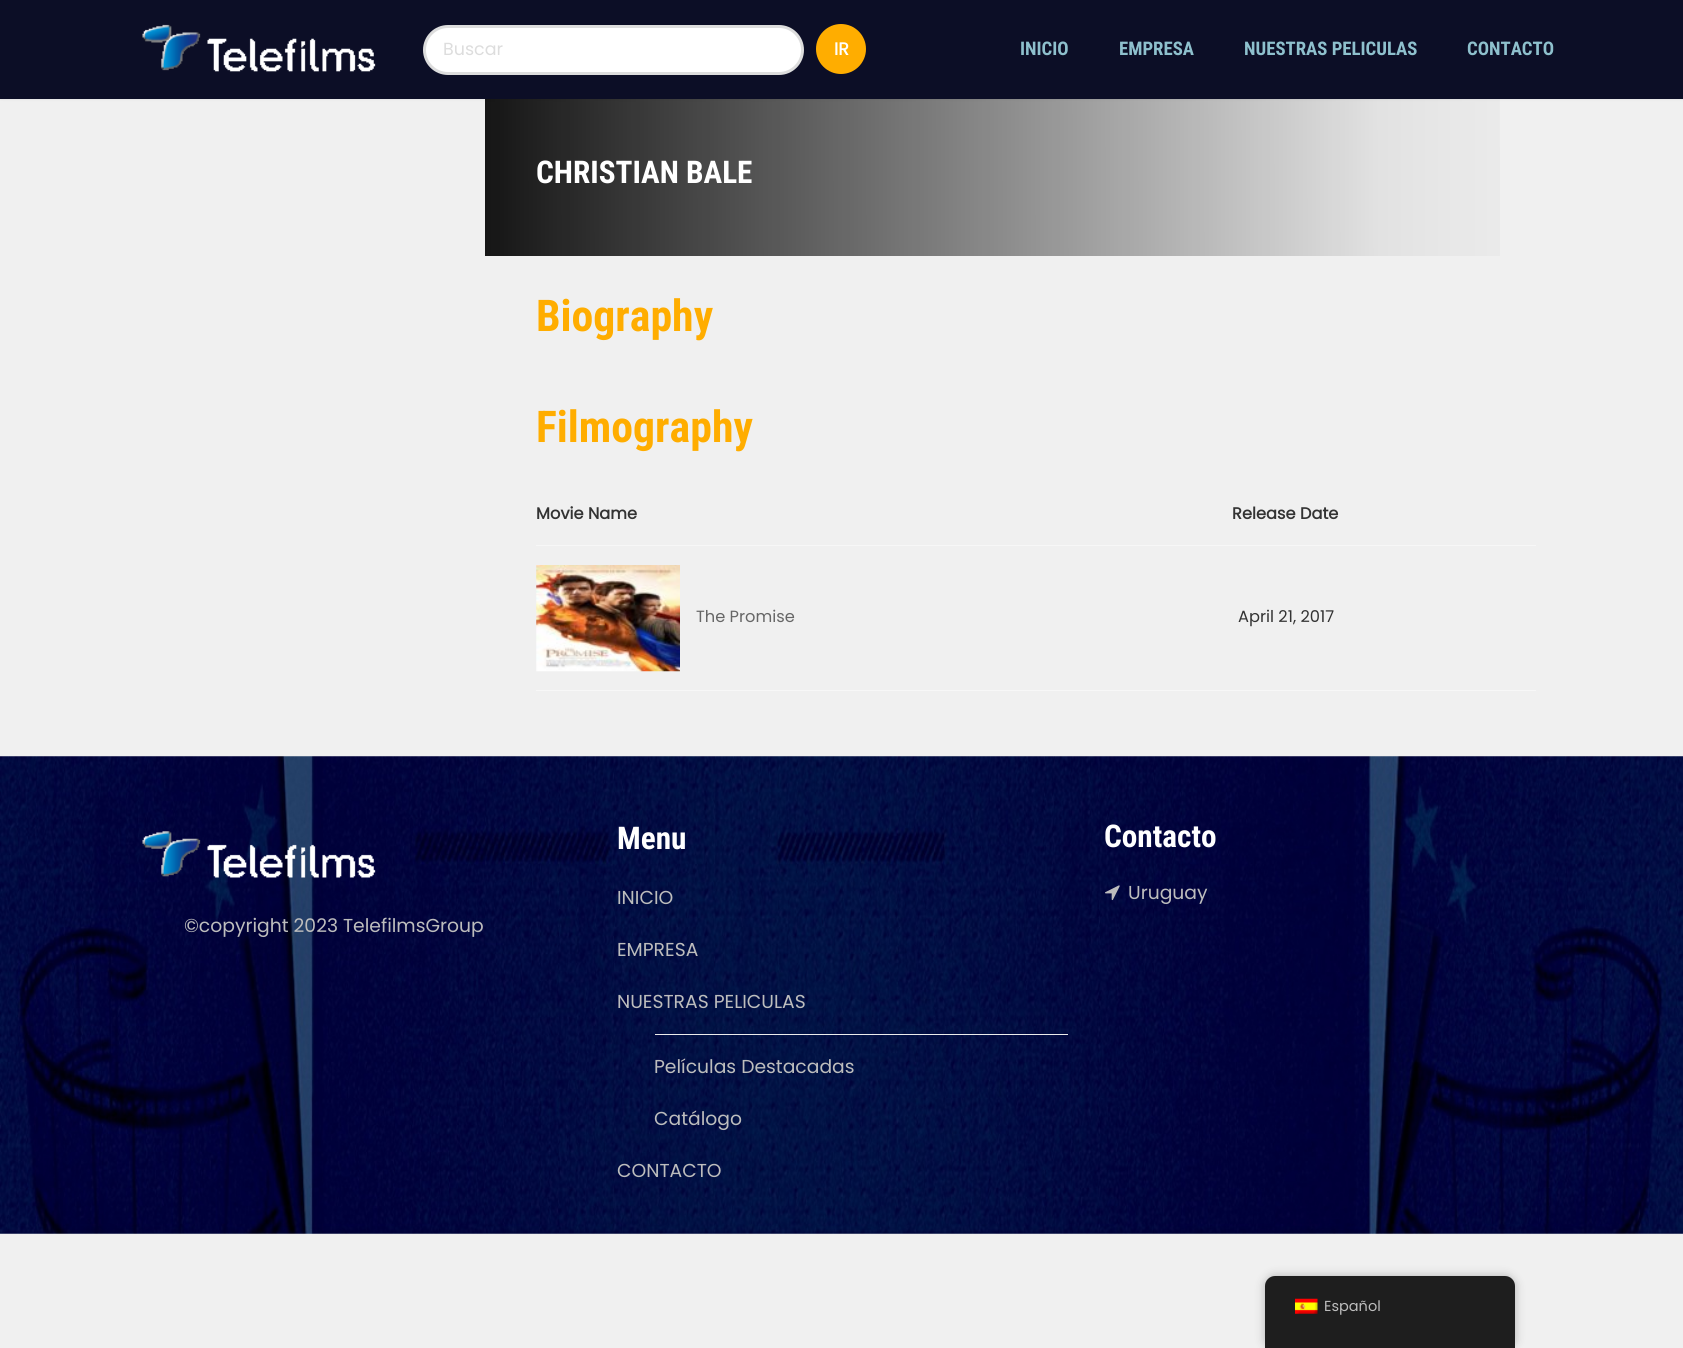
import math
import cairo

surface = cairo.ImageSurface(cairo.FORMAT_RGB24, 1683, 1348)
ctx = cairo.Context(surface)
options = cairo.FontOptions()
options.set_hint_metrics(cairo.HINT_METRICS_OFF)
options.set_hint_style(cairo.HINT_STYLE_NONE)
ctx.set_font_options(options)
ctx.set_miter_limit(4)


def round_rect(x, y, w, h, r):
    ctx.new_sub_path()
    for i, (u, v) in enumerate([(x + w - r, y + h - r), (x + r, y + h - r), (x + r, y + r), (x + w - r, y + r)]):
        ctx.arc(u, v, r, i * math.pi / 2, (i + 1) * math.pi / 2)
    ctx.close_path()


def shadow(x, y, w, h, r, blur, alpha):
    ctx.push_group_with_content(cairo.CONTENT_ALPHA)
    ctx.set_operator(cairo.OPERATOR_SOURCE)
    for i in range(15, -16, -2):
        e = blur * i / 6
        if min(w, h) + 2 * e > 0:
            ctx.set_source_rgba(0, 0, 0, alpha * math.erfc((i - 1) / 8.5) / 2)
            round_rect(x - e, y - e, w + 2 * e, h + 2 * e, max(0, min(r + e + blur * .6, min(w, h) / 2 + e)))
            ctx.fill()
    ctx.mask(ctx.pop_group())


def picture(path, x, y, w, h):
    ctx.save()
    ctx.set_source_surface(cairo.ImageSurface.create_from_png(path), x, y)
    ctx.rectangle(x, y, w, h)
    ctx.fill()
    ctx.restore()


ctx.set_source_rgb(0.941, 0.941, 0.941)
ctx.paint()
ctx.set_source_rgb(0, 0, 0)
shadow(1, -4, 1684, 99, 0, 2.5, 1)
ctx.set_source_rgb(0.047, 0.055, 0.149)
ctx.rectangle(0, 0, 1683, 99)
ctx.fill()
picture("img1.png", 142, 24, 234, 48)
ctx.set_source_rgb(1, 1, 1)
round_rect(424.5, 26.5, 378, 47, 23.5)
ctx.fill_preserve()
ctx.set_source_rgb(0.867, 0.867, 0.867)
ctx.set_line_width(3)
ctx.stroke()
ctx.select_font_face("Poppins")
ctx.set_font_size(17.5)
ctx.move_to(443, 55)
ctx.show_text("Buscar")
ctx.set_source_rgb(1, 0.678, 0)
ctx.new_path()
ctx.arc(841, 49, 25, 0, 2 * math.pi)
ctx.fill()
ctx.select_font_face("Poppins", cairo.FONT_SLANT_NORMAL, cairo.FONT_WEIGHT_BOLD)
ctx.set_source_rgb(1, 1, 1)
ctx.move_to(834, 55)
ctx.show_text("IR")
ctx.select_font_face("Roboto Condensed", cairo.FONT_SLANT_NORMAL, cairo.FONT_WEIGHT_BOLD)
ctx.set_font_size(18.75)
ctx.set_source_rgb(0.557, 0.753, 0.804)
ctx.move_to(1020, 55)
ctx.show_text("INICIO")
ctx.move_to(1119, 55)
ctx.show_text("EMPRESA")
ctx.move_to(1244, 55)
ctx.show_text("NUESTRAS PELICULAS")
ctx.move_to(1467, 55)
ctx.show_text("CONTACTO")
gradient = cairo.LinearGradient(485, 178, 1536, 177)
gradient.add_color_stop_rgba(0, 0, 0, 0, 0.91)
gradient.add_color_stop_rgba(0.85, 0, 0, 0, 0.06)
gradient.add_color_stop_rgba(1, 0, 0, 0, 0.01)
ctx.set_source(gradient)
ctx.rectangle(485, 99, 1015, 157)
ctx.fill()
ctx.set_font_size(31.25)
ctx.set_source_rgb(1, 1, 1)
ctx.move_to(536, 183)
ctx.show_text("CHRISTIAN BALE")
ctx.set_font_size(43.75)
ctx.set_source_rgb(1, 0.678, 0)
ctx.move_to(536, 331)
ctx.show_text("Biography")
ctx.move_to(536, 442)
ctx.show_text("Filmography")
ctx.set_source_rgb(0.965, 0.965, 0.965)
ctx.rectangle(536, 545, 1000, 1)
ctx.fill()
ctx.select_font_face("Poppins", cairo.FONT_SLANT_NORMAL, cairo.FONT_WEIGHT_BOLD)
ctx.set_font_size(16.25)
ctx.set_source_rgb(0.2, 0.2, 0.2)
ctx.move_to(536, 519)
ctx.show_text("Movie Name")
ctx.move_to(1232, 519)
ctx.show_text("Release Date")
ctx.set_source_rgb(0.965, 0.965, 0.965)
ctx.rectangle(536, 690, 1000, 1)
ctx.fill()
picture("img2.png", 536, 565, 144, 107)
ctx.select_font_face("Poppins")
ctx.set_source_rgb(0.4, 0.4, 0.4)
ctx.move_to(696, 622)
ctx.show_text("The Promise")
ctx.set_source_rgb(0.2, 0.2, 0.2)
ctx.move_to(1238, 622)
ctx.show_text("April 21, 2017")
picture("img3.png", 0, 756, 1683, 478)
picture("img4.png", 142, 831, 234, 47)
ctx.set_font_size(18.75)
ctx.set_source_rgb(0.741, 0.741, 0.741)
ctx.move_to(184, 932)
ctx.show_text("©copyright 2023 TelefilmsGroup")
ctx.select_font_face("Roboto Condensed", cairo.FONT_SLANT_NORMAL, cairo.FONT_WEIGHT_BOLD)
ctx.set_font_size(31.25)
ctx.set_source_rgb(1, 1, 1)
ctx.move_to(617, 849)
ctx.show_text("Menu")
ctx.select_font_face("Poppins")
ctx.set_font_size(18.75)
ctx.set_source_rgb(0.741, 0.741, 0.741)
ctx.move_to(617, 904)
ctx.show_text("INICIO")
ctx.move_to(617, 956)
ctx.show_text("EMPRESA")
ctx.move_to(617, 1008)
ctx.show_text("NUESTRAS PELICULAS")
ctx.set_source_rgb(0.925, 0.925, 0.925)
ctx.rectangle(655, 1034, 413, 1)
ctx.fill()
ctx.set_source_rgb(0.741, 0.741, 0.741)
ctx.move_to(654, 1073)
ctx.show_text("Películas Destacadas")
ctx.move_to(654, 1125)
ctx.show_text("Catálogo")
ctx.move_to(617, 1177)
ctx.show_text("CONTACTO")
ctx.select_font_face("Roboto Condensed", cairo.FONT_SLANT_NORMAL, cairo.FONT_WEIGHT_BOLD)
ctx.set_font_size(31.25)
ctx.set_source_rgb(1, 1, 1)
ctx.move_to(1104, 847)
ctx.show_text("Contacto")
picture("img5.png", 1105, 885, 15, 16)
ctx.select_font_face("Poppins")
ctx.set_font_size(18.75)
ctx.set_source_rgb(0.741, 0.741, 0.741)
ctx.move_to(1128, 899)
ctx.show_text("Uruguay")
ctx.set_source_rgb(0, 0, 0)
shadow(1265, 1276, 250, 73, 10, 5, 0.25)
ctx.set_source_rgb(0.118, 0.118, 0.118)
ctx.new_path()
ctx.move_to(1275, 1276)
ctx.line_to(1505, 1276)
ctx.curve_to(1510.5, 1276, 1515, 1280.5, 1515, 1286)
ctx.line_to(1515, 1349)
ctx.line_to(1265, 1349)
ctx.line_to(1265, 1286)
ctx.curve_to(1265, 1280.5, 1269.5, 1276, 1275, 1276)
ctx.close_path()
ctx.fill()
picture("img6.png", 1295, 1298, 23, 16)
ctx.set_font_size(14.5)
ctx.set_source_rgb(0.741, 0.741, 0.741)
ctx.move_to(1324, 1311)
ctx.show_text("Español")
surface.write_to_png("page.png")
